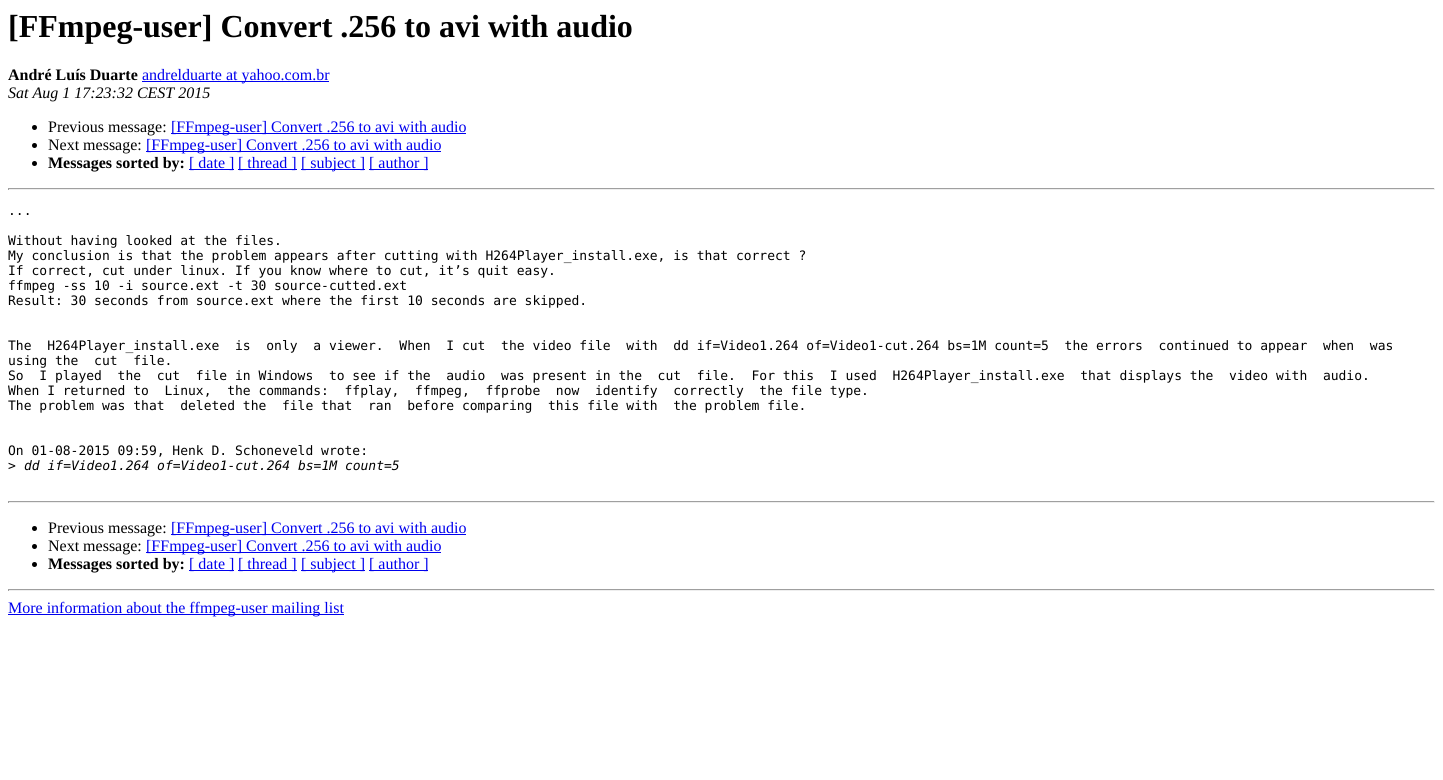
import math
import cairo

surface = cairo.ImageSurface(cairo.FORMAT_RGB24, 1443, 780)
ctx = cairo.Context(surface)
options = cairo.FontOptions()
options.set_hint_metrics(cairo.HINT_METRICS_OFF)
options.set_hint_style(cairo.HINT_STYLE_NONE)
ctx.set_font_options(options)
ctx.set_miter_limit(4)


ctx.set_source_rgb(1, 1, 1)
ctx.paint()
ctx.select_font_face("Liberation Serif", cairo.FONT_SLANT_NORMAL, cairo.FONT_WEIGHT_BOLD)
ctx.set_font_size(32)
ctx.set_source_rgb(0, 0, 0)
ctx.move_to(8, 37)
ctx.show_text("[FFmpeg-user] Convert .256 to avi with audio")
ctx.set_font_size(16)
ctx.move_to(8, 80)
ctx.show_text("André Luís Duarte")
ctx.set_source_rgb(0, 0, 0.933)
ctx.rectangle(142, 81, 187, 1)
ctx.fill()
ctx.select_font_face("Liberation Serif")
ctx.move_to(142, 80)
ctx.show_text("andrelduarte at yahoo.com.br")
ctx.select_font_face("Liberation Serif", cairo.FONT_SLANT_ITALIC)
ctx.set_source_rgb(0, 0, 0)
ctx.move_to(8, 98)
ctx.show_text("Sat Aug 1 17:23:32 CEST 2015")
ctx.new_path()
ctx.arc(34.5, 127.5, 2.5, 0, 2 * math.pi)
ctx.fill()
ctx.select_font_face("Liberation Serif")
ctx.move_to(48, 132)
ctx.show_text("Previous message:")
ctx.set_source_rgb(0, 0, 0.933)
ctx.rectangle(171, 133, 295, 1)
ctx.fill()
ctx.move_to(171, 132)
ctx.show_text("[FFmpeg-user] Convert .256 to avi with audio")
ctx.set_source_rgb(0, 0, 0)
ctx.new_path()
ctx.arc(34.5, 145.5, 2.5, 0, 2 * math.pi)
ctx.fill()
ctx.move_to(48, 150)
ctx.show_text("Next message:")
ctx.set_source_rgb(0, 0, 0.933)
ctx.rectangle(146, 151, 295, 1)
ctx.fill()
ctx.move_to(146, 150)
ctx.show_text("[FFmpeg-user] Convert .256 to avi with audio")
ctx.set_source_rgb(0, 0, 0)
ctx.new_path()
ctx.arc(34.5, 163.5, 2.5, 0, 2 * math.pi)
ctx.fill()
ctx.select_font_face("Liberation Serif", cairo.FONT_SLANT_NORMAL, cairo.FONT_WEIGHT_BOLD)
ctx.move_to(48, 168)
ctx.show_text("Messages sorted by:")
ctx.set_source_rgb(0, 0, 0.933)
ctx.rectangle(189, 169, 45, 1)
ctx.fill()
ctx.select_font_face("Liberation Serif")
ctx.move_to(189, 168)
ctx.show_text("[ date ]")
ctx.rectangle(238, 169, 59, 1)
ctx.fill()
ctx.move_to(238, 168)
ctx.show_text("[ thread ]")
ctx.rectangle(301, 169, 64, 1)
ctx.fill()
ctx.move_to(301, 168)
ctx.show_text("[ subject ]")
ctx.rectangle(369, 169, 59, 1)
ctx.fill()
ctx.move_to(369, 168)
ctx.show_text("[ author ]")
ctx.set_source_rgb(0.624, 0.624, 0.624)
ctx.rectangle(8, 188, 1427, 1)
ctx.fill()
ctx.set_source_rgb(0.933, 0.933, 0.933)
ctx.rectangle(1434, 188, 1, 2)
ctx.fill()
ctx.rectangle(8, 189, 1427, 1)
ctx.fill()
ctx.set_source_rgb(0.624, 0.624, 0.624)
ctx.rectangle(8, 188, 1, 2)
ctx.fill()
ctx.select_font_face("DejaVu Sans Mono")
ctx.set_font_size(13)
ctx.set_source_rgb(0, 0, 0)
ctx.move_to(8, 215)
ctx.show_text("...")
ctx.move_to(8, 245)
ctx.show_text("Without having looked at the files.")
ctx.move_to(8, 260)
ctx.show_text("My conclusion is that the problem appears after cutting with H264Player_install.exe, is that correct ?")
ctx.move_to(8, 275)
ctx.show_text("If correct, cut under linux. If you know where to cut, it’s quit easy.")
ctx.move_to(8, 290)
ctx.show_text("ffmpeg -ss 10 -i source.ext -t 30 source-cutted.ext")
ctx.move_to(8, 305)
ctx.show_text("Result: 30 seconds from source.ext where the first 10 seconds are skipped.")
ctx.move_to(8, 350)
ctx.show_text("The  H264Player_install.exe  is  only  a viewer.  When  I cut  the video file  with  dd if=Video1.264 of=Video1-cut.264 bs=1M count=5  the errors  continued to appear  when  was")
ctx.move_to(8, 365)
ctx.show_text("using the  cut  file.")
ctx.move_to(8, 380)
ctx.show_text("So  I played  the  cut  file in Windows  to see if the  audio  was present in the  cut  file.  For this  I used  H264Player_install.exe  that displays the  video with  audio.")
ctx.move_to(8, 395)
ctx.show_text("When I returned to  Linux,  the commands:  ffplay,  ffmpeg,  ffprobe  now  identify  correctly  the file type.")
ctx.move_to(8, 410)
ctx.show_text("The problem was that  deleted the  file that  ran  before comparing  this file with  the problem file.")
ctx.move_to(8, 455)
ctx.show_text("On 01-08-2015 09:59, Henk D. Schoneveld wrote:")
ctx.move_to(8, 470)
ctx.show_text(">")
ctx.select_font_face("DejaVu Sans Mono", cairo.FONT_SLANT_ITALIC)
ctx.move_to(24, 470)
ctx.show_text("dd if=Video1.264 of=Video1-cut.264 bs=1M count=5")
ctx.set_source_rgb(0.624, 0.624, 0.624)
ctx.rectangle(8, 501, 1427, 1)
ctx.fill()
ctx.set_source_rgb(0.933, 0.933, 0.933)
ctx.rectangle(1434, 501, 1, 2)
ctx.fill()
ctx.rectangle(8, 502, 1427, 1)
ctx.fill()
ctx.set_source_rgb(0.624, 0.624, 0.624)
ctx.rectangle(8, 501, 1, 2)
ctx.fill()
ctx.set_source_rgb(0, 0, 0)
ctx.arc(34.5, 528.5, 2.5, 0, 2 * math.pi)
ctx.fill()
ctx.select_font_face("Liberation Serif")
ctx.set_font_size(16)
ctx.move_to(48, 533)
ctx.show_text("Previous message:")
ctx.set_source_rgb(0, 0, 0.933)
ctx.rectangle(171, 534, 295, 1)
ctx.fill()
ctx.move_to(171, 533)
ctx.show_text("[FFmpeg-user] Convert .256 to avi with audio")
ctx.set_source_rgb(0, 0, 0)
ctx.new_path()
ctx.arc(34.5, 546.5, 2.5, 0, 2 * math.pi)
ctx.fill()
ctx.move_to(48, 551)
ctx.show_text("Next message:")
ctx.set_source_rgb(0, 0, 0.933)
ctx.rectangle(146, 552, 295, 1)
ctx.fill()
ctx.move_to(146, 551)
ctx.show_text("[FFmpeg-user] Convert .256 to avi with audio")
ctx.set_source_rgb(0, 0, 0)
ctx.new_path()
ctx.arc(34.5, 564.5, 2.5, 0, 2 * math.pi)
ctx.fill()
ctx.select_font_face("Liberation Serif", cairo.FONT_SLANT_NORMAL, cairo.FONT_WEIGHT_BOLD)
ctx.move_to(48, 569)
ctx.show_text("Messages sorted by:")
ctx.set_source_rgb(0, 0, 0.933)
ctx.rectangle(189, 570, 45, 1)
ctx.fill()
ctx.select_font_face("Liberation Serif")
ctx.move_to(189, 569)
ctx.show_text("[ date ]")
ctx.rectangle(238, 570, 59, 1)
ctx.fill()
ctx.move_to(238, 569)
ctx.show_text("[ thread ]")
ctx.rectangle(301, 570, 64, 1)
ctx.fill()
ctx.move_to(301, 569)
ctx.show_text("[ subject ]")
ctx.rectangle(369, 570, 59, 1)
ctx.fill()
ctx.move_to(369, 569)
ctx.show_text("[ author ]")
ctx.set_source_rgb(0.624, 0.624, 0.624)
ctx.rectangle(8, 589, 1427, 1)
ctx.fill()
ctx.set_source_rgb(0.933, 0.933, 0.933)
ctx.rectangle(1434, 589, 1, 2)
ctx.fill()
ctx.rectangle(8, 590, 1427, 1)
ctx.fill()
ctx.set_source_rgb(0.624, 0.624, 0.624)
ctx.rectangle(8, 589, 1, 2)
ctx.fill()
ctx.set_source_rgb(0, 0, 0.933)
ctx.rectangle(8, 614, 336, 1)
ctx.fill()
ctx.move_to(8, 613)
ctx.show_text("More information about the ffmpeg-user mailing list")
surface.write_to_png("page.png")
